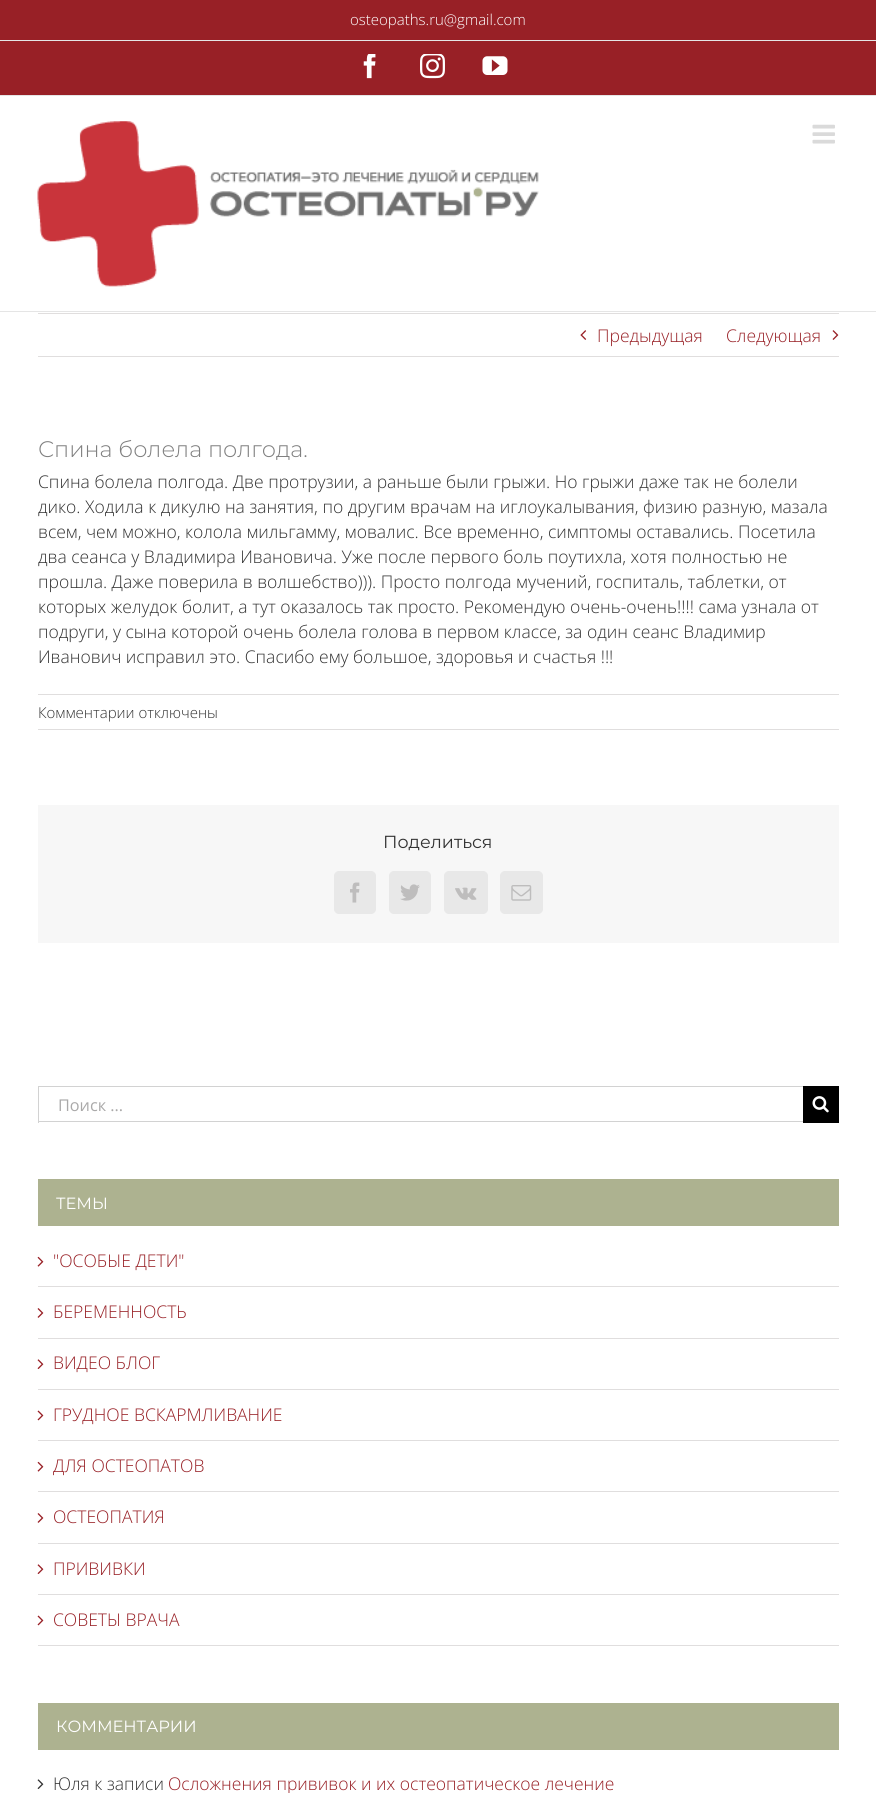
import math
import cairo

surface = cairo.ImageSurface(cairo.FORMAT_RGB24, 876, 1793)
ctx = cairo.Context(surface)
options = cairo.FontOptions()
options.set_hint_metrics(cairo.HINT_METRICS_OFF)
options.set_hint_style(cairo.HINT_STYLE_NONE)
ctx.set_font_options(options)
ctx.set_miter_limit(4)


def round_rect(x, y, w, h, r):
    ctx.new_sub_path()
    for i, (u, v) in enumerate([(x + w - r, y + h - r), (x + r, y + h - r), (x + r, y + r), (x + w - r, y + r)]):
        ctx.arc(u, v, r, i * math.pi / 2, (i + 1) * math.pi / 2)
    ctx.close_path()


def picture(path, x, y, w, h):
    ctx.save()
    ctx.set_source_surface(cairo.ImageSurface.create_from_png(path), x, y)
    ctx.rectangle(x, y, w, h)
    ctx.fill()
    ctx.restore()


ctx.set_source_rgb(1, 1, 1)
ctx.paint()
ctx.set_source_rgb(0.596, 0.125, 0.149)
ctx.rectangle(0, 0, 876, 95)
ctx.fill()
ctx.set_source_rgb(0.898, 0.898, 0.898)
ctx.rectangle(0, 95, 876, 1)
ctx.fill()
ctx.rectangle(0, 40, 876, 1)
ctx.fill()
ctx.select_font_face("Open Sans Light")
ctx.set_font_size(15)
ctx.set_source_rgb(1, 1, 1)
ctx.move_to(350, 25)
ctx.show_text("osteopaths.ru@gmail.com")
picture("img1.png", 363, 54, 13, 25)
picture("img2.png", 420, 54, 25, 25)
picture("img3.png", 482, 56, 26, 19)
ctx.set_source_rgb(0.898, 0.898, 0.898)
ctx.rectangle(0, 311, 876, 1)
ctx.fill()
picture("img4.png", 37, 121, 502, 166)
picture("img5.png", 812, 124, 23, 20)
ctx.set_source_rgb(0.878, 0.871, 0.871)
ctx.rectangle(38, 313, 801, 1)
ctx.fill()
ctx.rectangle(38, 356, 801, 1)
ctx.fill()
picture("img6.png", 580, 330, 7, 10)
ctx.set_font_size(17.5)
ctx.set_source_rgb(0.596, 0.125, 0.149)
ctx.move_to(597, 342)
ctx.show_text("Предыдущая")
ctx.move_to(726, 342)
ctx.show_text("Следующая")
picture("img7.png", 832, 330, 7, 10)
ctx.select_font_face("Montserrat Light")
ctx.set_font_size(22.5)
ctx.set_source_rgb(0.498, 0.498, 0.498)
ctx.move_to(38, 457)
ctx.show_text("Спина болела полгода.")
ctx.select_font_face("Open Sans Light")
ctx.set_font_size(17.5)
ctx.set_source_rgb(0.2, 0.2, 0.2)
ctx.move_to(38, 488)
ctx.show_text("Спина болела полгода. Две протрузии, а раньше были грыжи. Но грыжи даже так не болели")
ctx.move_to(38, 513)
ctx.show_text("дико. Ходила к дикулю на занятия, по другим врачам на иглоукалывания, физию разную, мазала")
ctx.move_to(38, 538)
ctx.show_text("всем, чем можно, колола мильгамму, мовалис. Все временно, симптомы оставались. Посетила")
ctx.move_to(38, 563)
ctx.show_text("два сеанса у Владимира Ивановича. Уже после первого боль поутихла, хотя полностью не")
ctx.move_to(38, 588)
ctx.show_text("прошла. Даже поверила в волшебство))). Просто полгода мучений, госпиталь, таблетки, от")
ctx.move_to(38, 613)
ctx.show_text("которых желудок болит, а тут оказалось так просто. Рекомендую очень-очень!!!! сама узнала от")
ctx.move_to(38, 638)
ctx.show_text("подруги, у сына которой очень болела голова в первом классе, за один сеанс Владимир")
ctx.move_to(38, 663)
ctx.show_text("Иванович исправил это. Спасибо ему большое, здоровья и счастья !!!")
ctx.set_source_rgb(0.878, 0.871, 0.871)
ctx.rectangle(38, 694, 801, 1)
ctx.fill()
ctx.rectangle(38, 729, 801, 1)
ctx.fill()
ctx.set_font_size(15)
ctx.set_source_rgb(0.2, 0.2, 0.2)
ctx.move_to(38, 718)
ctx.show_text("Комментарии отключены")
ctx.set_source_rgb(0.965, 0.965, 0.965)
ctx.rectangle(38, 805, 801, 138)
ctx.fill()
ctx.select_font_face("Montserrat")
ctx.set_font_size(17.5)
ctx.set_source_rgb(0.2, 0.2, 0.2)
ctx.move_to(383, 848)
ctx.show_text("Поделиться")
ctx.set_source_rgb(0.91, 0.91, 0.91)
round_rect(334.5, 871.5, 41, 42, 4.5)
ctx.fill_preserve()
ctx.set_line_width(1)
ctx.stroke()
picture("img8.png", 350, 882, 10, 21)
round_rect(389.5, 871.5, 41, 42, 4.5)
ctx.fill_preserve()
ctx.stroke()
picture("img9.png", 400, 884, 20, 17)
round_rect(444.5, 871.5, 43, 42, 4.5)
ctx.fill_preserve()
ctx.stroke()
picture("img10.png", 455, 887, 22, 13)
round_rect(500.5, 871.5, 42, 42, 4.5)
ctx.fill_preserve()
ctx.stroke()
picture("img11.png", 511, 885, 21, 16)
ctx.set_source_rgb(0.824, 0.824, 0.824)
ctx.rectangle(38, 1086, 765, 1)
ctx.fill()
ctx.rectangle(38, 1121, 765, 1)
ctx.fill()
ctx.rectangle(38, 1086, 1, 37)
ctx.fill()
ctx.select_font_face("Open Sans")
ctx.set_font_size(16.25)
ctx.set_source_rgb(0.667, 0.663, 0.663)
ctx.move_to(58, 1111)
ctx.show_text("Поиск ...")
ctx.set_source_rgb(0, 0, 0)
ctx.rectangle(803, 1086, 36, 37)
ctx.fill()
picture("img12.png", 812, 1096, 17, 17)
ctx.set_source_rgb(0.678, 0.698, 0.565)
ctx.rectangle(38, 1179, 801, 47)
ctx.fill()
ctx.select_font_face("Montserrat")
ctx.set_source_rgb(1, 1, 1)
ctx.move_to(56, 1209)
ctx.show_text("ТЕМЫ")
ctx.set_source_rgb(0.878, 0.871, 0.871)
ctx.rectangle(38, 1286, 801, 1)
ctx.fill()
picture("img13.png", 37, 1256, 7, 11)
ctx.select_font_face("Open Sans Light")
ctx.set_font_size(17.5)
ctx.set_source_rgb(0.596, 0.125, 0.149)
ctx.move_to(53, 1267)
ctx.show_text("\"ОСОБЫЕ ДЕТИ\"")
ctx.set_source_rgb(0.878, 0.871, 0.871)
ctx.rectangle(38, 1338, 801, 1)
ctx.fill()
picture("img14.png", 37, 1308, 7, 10)
ctx.set_source_rgb(0.596, 0.125, 0.149)
ctx.move_to(53, 1318)
ctx.show_text("БЕРЕМЕННОСТЬ")
ctx.set_source_rgb(0.878, 0.871, 0.871)
ctx.rectangle(38, 1389, 801, 1)
ctx.fill()
picture("img15.png", 37, 1359, 7, 10)
ctx.set_source_rgb(0.596, 0.125, 0.149)
ctx.move_to(53, 1369)
ctx.show_text("ВИДЕО БЛОГ")
ctx.set_source_rgb(0.878, 0.871, 0.871)
ctx.rectangle(38, 1440, 801, 1)
ctx.fill()
picture("img16.png", 37, 1410, 7, 11)
ctx.set_source_rgb(0.596, 0.125, 0.149)
ctx.move_to(53, 1421)
ctx.show_text("ГРУДНОЕ ВСКАРМЛИВАНИЕ")
ctx.set_source_rgb(0.878, 0.871, 0.871)
ctx.rectangle(38, 1491, 801, 1)
ctx.fill()
picture("img13.png", 37, 1461, 7, 11)
ctx.set_source_rgb(0.596, 0.125, 0.149)
ctx.move_to(53, 1472)
ctx.show_text("ДЛЯ ОСТЕОПАТОВ")
ctx.set_source_rgb(0.878, 0.871, 0.871)
ctx.rectangle(38, 1543, 801, 1)
ctx.fill()
picture("img14.png", 37, 1513, 7, 10)
ctx.set_source_rgb(0.596, 0.125, 0.149)
ctx.move_to(53, 1523)
ctx.show_text("ОСТЕОПАТИЯ")
ctx.set_source_rgb(0.878, 0.871, 0.871)
ctx.rectangle(38, 1594, 801, 1)
ctx.fill()
picture("img15.png", 37, 1564, 7, 10)
ctx.set_source_rgb(0.596, 0.125, 0.149)
ctx.move_to(53, 1575)
ctx.show_text("ПРИВИВКИ")
ctx.set_source_rgb(0.878, 0.871, 0.871)
ctx.rectangle(38, 1645, 801, 1)
ctx.fill()
picture("img16.png", 37, 1615, 7, 11)
ctx.set_source_rgb(0.596, 0.125, 0.149)
ctx.move_to(53, 1626)
ctx.show_text("СОВЕТЫ ВРАЧА")
ctx.set_source_rgb(0.678, 0.698, 0.565)
ctx.rectangle(38, 1703, 801, 47)
ctx.fill()
ctx.select_font_face("Montserrat")
ctx.set_font_size(16.25)
ctx.set_source_rgb(1, 1, 1)
ctx.move_to(56, 1732)
ctx.show_text("КОММЕНТАРИИ")
picture("img17.png", 37, 1779, 7, 10)
ctx.select_font_face("Open Sans Light")
ctx.set_font_size(17.5)
ctx.set_source_rgb(0.2, 0.2, 0.2)
ctx.move_to(53, 1790)
ctx.show_text("Юля к записи")
ctx.set_source_rgb(0.596, 0.125, 0.149)
ctx.move_to(168, 1790)
ctx.show_text("Осложнения прививок и их остеопатическое лечение")
surface.write_to_png("page.png")
